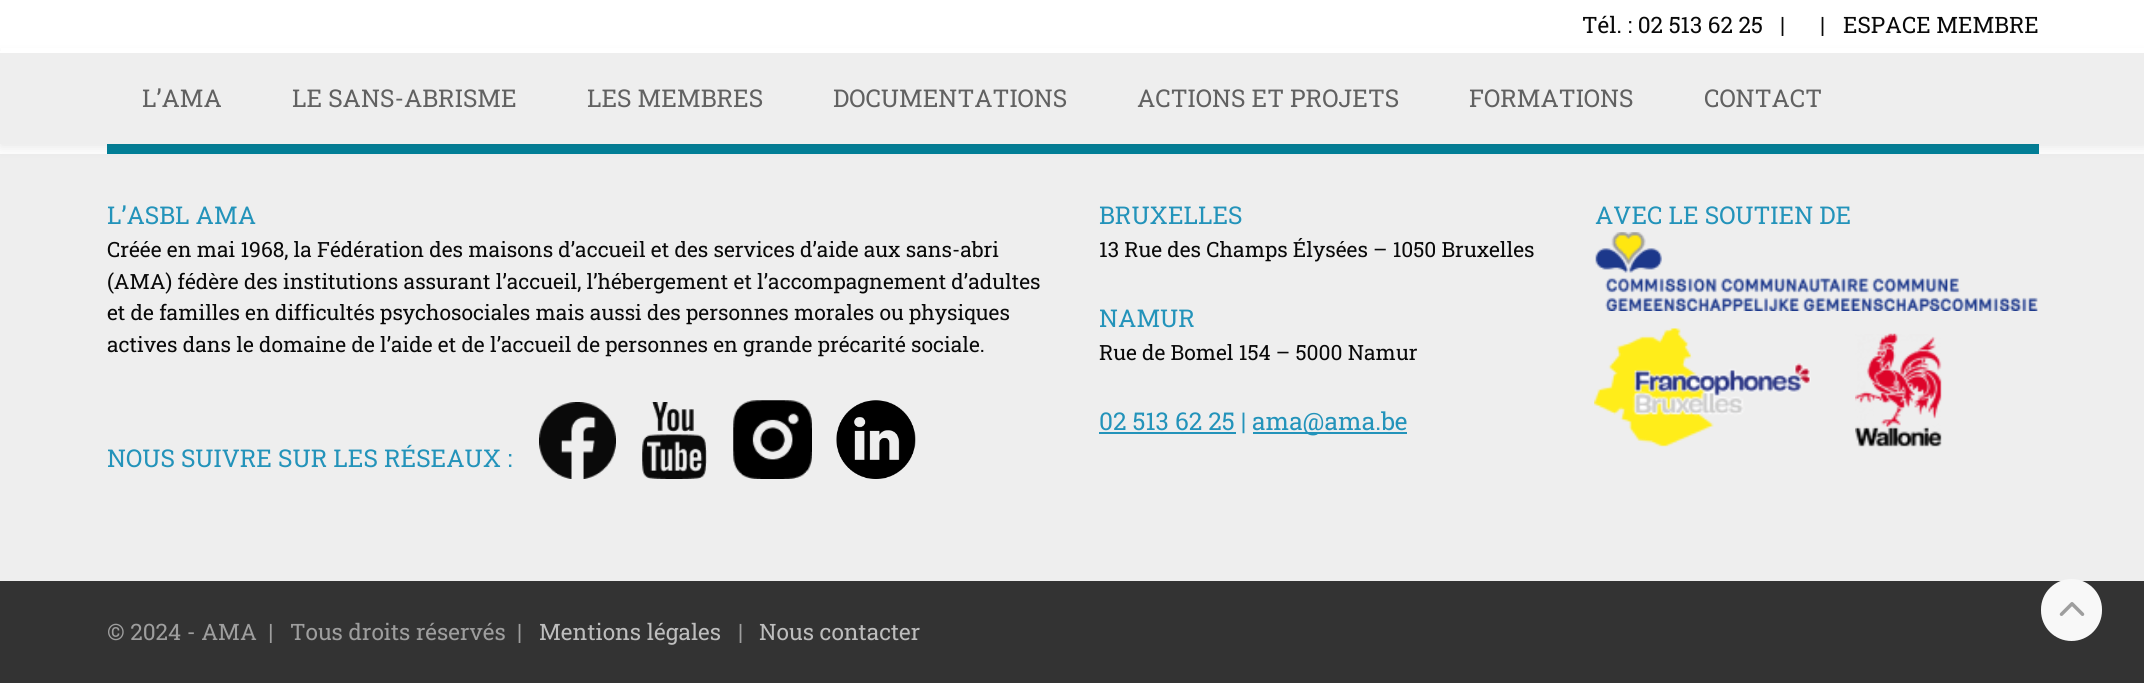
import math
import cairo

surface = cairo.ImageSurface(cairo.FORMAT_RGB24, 2144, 683)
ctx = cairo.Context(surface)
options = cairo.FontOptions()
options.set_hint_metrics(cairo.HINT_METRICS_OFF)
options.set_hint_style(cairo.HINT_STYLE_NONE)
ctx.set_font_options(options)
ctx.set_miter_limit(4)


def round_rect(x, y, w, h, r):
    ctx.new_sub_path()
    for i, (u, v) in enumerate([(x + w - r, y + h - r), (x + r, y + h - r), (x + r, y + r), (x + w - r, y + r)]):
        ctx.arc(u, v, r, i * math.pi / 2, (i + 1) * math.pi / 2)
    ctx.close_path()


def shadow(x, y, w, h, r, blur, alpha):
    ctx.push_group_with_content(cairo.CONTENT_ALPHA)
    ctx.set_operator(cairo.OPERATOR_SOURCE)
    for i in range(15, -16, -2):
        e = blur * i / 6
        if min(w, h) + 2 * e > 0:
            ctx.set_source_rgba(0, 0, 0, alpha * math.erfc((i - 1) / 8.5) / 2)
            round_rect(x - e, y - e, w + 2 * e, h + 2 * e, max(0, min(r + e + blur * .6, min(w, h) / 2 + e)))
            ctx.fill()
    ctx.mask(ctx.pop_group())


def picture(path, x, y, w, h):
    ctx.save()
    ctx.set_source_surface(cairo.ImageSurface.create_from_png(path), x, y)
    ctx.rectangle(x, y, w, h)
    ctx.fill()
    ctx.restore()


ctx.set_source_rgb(1, 1, 1)
ctx.paint()
gradient = cairo.LinearGradient(1073, 154, 1073, -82)
gradient.add_color_stop_rgba(0, 0, 0.502, 0.596, 1)
gradient.add_color_stop_rgba(0.78, 0.322, 0.714, 0.851, 1)
gradient.add_color_stop_rgba(1, 0, 0.831, 1, 1)
ctx.set_source(gradient)
ctx.rectangle(107, 144, 1932, 10)
ctx.fill()
ctx.set_source_rgb(0.933, 0.933, 0.933)
ctx.rectangle(0, 154, 2144, 427)
ctx.fill()
ctx.set_source_rgb(0, 0, 0)
shadow(0, 56, 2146, 91, 0, 6, 0.1)
ctx.set_source_rgb(1, 1, 1)
ctx.rectangle(1, 48, 2143, 3)
ctx.fill()
ctx.rectangle(0, 51, 2144, 2)
ctx.fill()
ctx.select_font_face("Roboto Slab")
ctx.set_font_size(22.6)
ctx.set_source_rgb(0.039, 0.039, 0.039)
ctx.move_to(1582, 33)
ctx.show_text("Tél. : 02 513 62 25")
ctx.move_to(1780, 33)
ctx.show_text("|")
ctx.move_to(1820, 33)
ctx.show_text("|")
ctx.move_to(1843, 33)
ctx.show_text("ESPACE MEMBRE")
ctx.set_source_rgb(0.933, 0.933, 0.933)
ctx.rectangle(0, 53, 2144, 91)
ctx.fill()
ctx.set_font_size(24.5)
ctx.set_source_rgb(0.38, 0.38, 0.38)
ctx.move_to(142, 107)
ctx.show_text("L’AMA")
ctx.move_to(292, 107)
ctx.show_text("LE SANS-ABRISME")
ctx.move_to(587, 107)
ctx.show_text("LES MEMBRES")
ctx.move_to(833, 107)
ctx.show_text("DOCUMENTATIONS")
ctx.move_to(1137, 107)
ctx.show_text("ACTIONS ET PROJETS")
ctx.move_to(1469, 107)
ctx.show_text("FORMATIONS")
ctx.move_to(1704, 107)
ctx.show_text("CONTACT")
ctx.set_source_rgb(0.137, 0.576, 0.729)
ctx.move_to(107, 224)
ctx.show_text("L’ASBL AMA")
ctx.set_font_size(21)
ctx.set_source_rgb(0.039, 0.039, 0.039)
ctx.move_to(107, 257)
ctx.show_text("Créée en mai 1968, la Fédération des maisons d’accueil et des services d’aide aux sans-abri")
ctx.move_to(107, 289)
ctx.show_text("(AMA) fédère des institutions assurant l’accueil, l’hébergement et l’accompagnement d’adultes")
ctx.move_to(107, 320)
ctx.show_text("et de familles en difficultés psychosociales mais aussi des personnes morales ou physiques")
ctx.move_to(107, 352)
ctx.show_text("actives dans le domaine de l’aide et de l’accueil de personnes en grande précarité sociale.")
ctx.set_font_size(24.5)
ctx.set_source_rgb(0.137, 0.576, 0.729)
ctx.move_to(107, 467)
ctx.show_text("NOUS SUIVRE SUR LES RÉSEAUX :")
picture("img1.png", 539, 402, 77, 77)
picture("img2.png", 642, 402, 65, 77)
picture("img3.png", 733, 400, 79, 79)
picture("img4.png", 836, 400, 80, 79)
ctx.move_to(1099, 224)
ctx.show_text("BRUXELLES")
ctx.set_font_size(21)
ctx.set_source_rgb(0.039, 0.039, 0.039)
ctx.move_to(1099, 257)
ctx.show_text("13 Rue des Champs Élysées – 1050 Bruxelles")
ctx.set_font_size(24.5)
ctx.set_source_rgb(0.137, 0.576, 0.729)
ctx.move_to(1099, 327)
ctx.show_text("NAMUR")
ctx.set_font_size(21)
ctx.set_source_rgb(0.039, 0.039, 0.039)
ctx.move_to(1099, 360)
ctx.show_text("Rue de Bomel 154 – 5000 Namur")
ctx.set_source_rgb(0.137, 0.576, 0.729)
ctx.rectangle(1099, 432, 137, 2)
ctx.fill()
ctx.set_font_size(24.5)
ctx.move_to(1099, 430)
ctx.show_text("02 513 62 25 |")
ctx.rectangle(1253, 432, 154, 2)
ctx.fill()
ctx.move_to(1252, 430)
ctx.show_text("ama@ama.be")
ctx.move_to(1595, 224)
ctx.show_text("AVEC LE SOUTIEN DE")
picture("img5.png", 1595, 232, 443, 79)
picture("img6.png", 1594, 328, 217, 119)
picture("img7.png", 1855, 333, 87, 114)
ctx.set_source_rgb(0.2, 0.2, 0.2)
ctx.rectangle(0, 581, 2144, 102)
ctx.fill()
ctx.set_font_size(22.6)
ctx.set_source_rgb(0.62, 0.62, 0.62)
ctx.move_to(107, 640)
ctx.show_text("© 2024 - AMA  |   Tous droits réservés  |")
ctx.set_source_rgb(0.741, 0.741, 0.741)
ctx.move_to(539, 640)
ctx.show_text("Mentions légales")
ctx.set_source_rgb(0.62, 0.62, 0.62)
ctx.move_to(738, 640)
ctx.show_text("|")
ctx.set_source_rgb(0.741, 0.741, 0.741)
ctx.move_to(759, 640)
ctx.show_text("Nous contacter")
ctx.set_source_rgb(0.969, 0.969, 0.969)
round_rect(2041, 579, 61, 62, 30.5)
ctx.fill()
picture("img8.png", 2059, 602, 26, 14)
surface.write_to_png("page.png")
